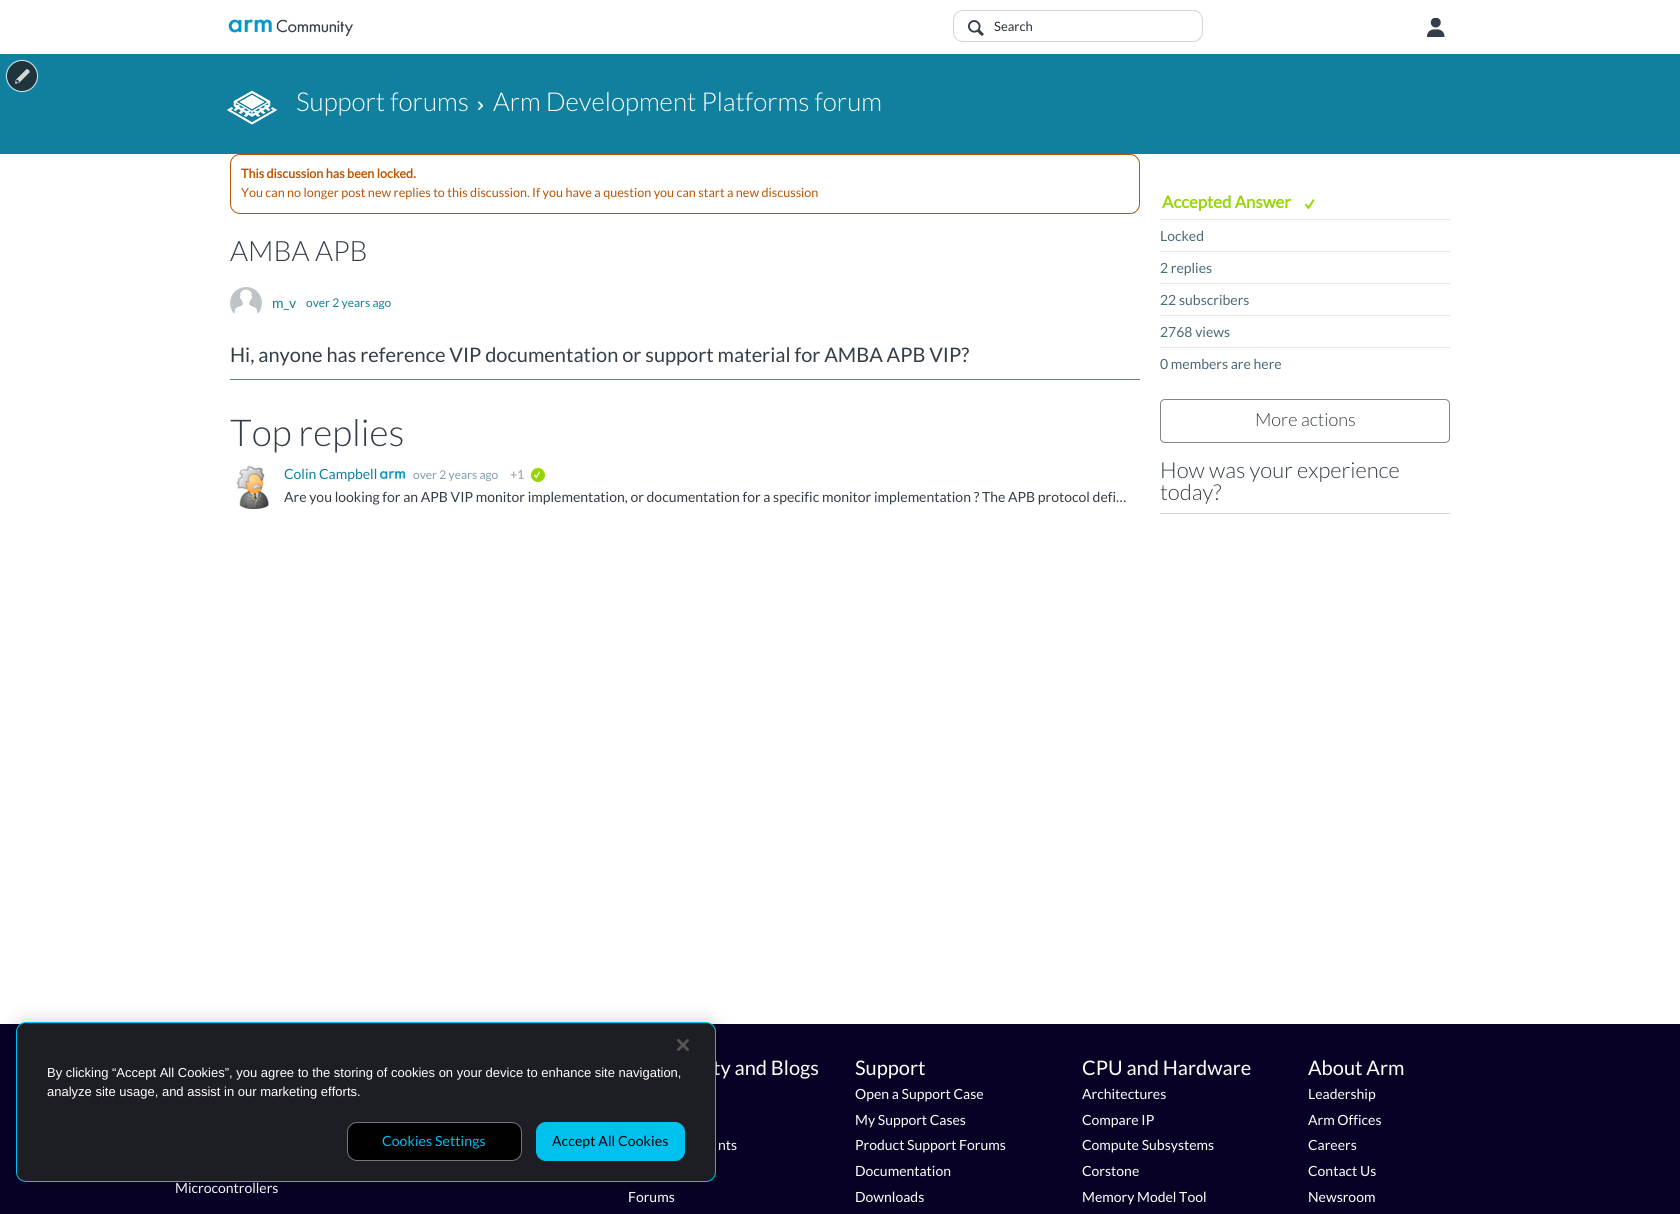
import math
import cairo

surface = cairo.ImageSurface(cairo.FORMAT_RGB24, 1680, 1214)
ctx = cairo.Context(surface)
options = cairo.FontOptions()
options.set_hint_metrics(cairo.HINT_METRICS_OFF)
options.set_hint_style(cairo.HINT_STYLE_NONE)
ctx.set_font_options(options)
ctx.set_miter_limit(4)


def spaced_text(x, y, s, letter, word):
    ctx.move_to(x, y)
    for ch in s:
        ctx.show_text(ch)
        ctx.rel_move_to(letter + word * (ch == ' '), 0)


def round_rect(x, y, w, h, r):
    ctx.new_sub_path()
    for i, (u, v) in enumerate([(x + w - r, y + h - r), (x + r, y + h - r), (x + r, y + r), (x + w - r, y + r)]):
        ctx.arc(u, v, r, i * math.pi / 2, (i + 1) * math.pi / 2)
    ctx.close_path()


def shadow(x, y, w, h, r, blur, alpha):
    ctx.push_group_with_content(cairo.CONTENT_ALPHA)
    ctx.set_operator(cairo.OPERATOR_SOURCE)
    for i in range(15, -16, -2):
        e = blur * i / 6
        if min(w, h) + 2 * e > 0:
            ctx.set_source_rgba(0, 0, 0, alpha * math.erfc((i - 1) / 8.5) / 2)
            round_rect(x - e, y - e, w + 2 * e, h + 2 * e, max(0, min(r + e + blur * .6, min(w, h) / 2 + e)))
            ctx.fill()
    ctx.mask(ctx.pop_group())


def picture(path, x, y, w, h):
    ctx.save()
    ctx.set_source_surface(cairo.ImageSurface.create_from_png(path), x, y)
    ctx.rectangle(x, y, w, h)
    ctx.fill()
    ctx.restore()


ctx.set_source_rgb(1, 1, 1)
ctx.paint()
ctx.set_source_rgb(0.067, 0.502, 0.624)
ctx.rectangle(0, 54, 1680, 100)
ctx.fill()
ctx.set_source_rgb(0.812, 0.902, 0.925)
shadow(6, 60, 32, 32, 16, 0.5, 0.25)
ctx.set_source_rgb(0.122, 0.208, 0.231)
ctx.arc(22, 76, 15.5, 0, 2 * math.pi)
ctx.fill_preserve()
ctx.set_source_rgb(0.812, 0.902, 0.925)
ctx.set_line_width(1)
ctx.stroke()
picture("img1.png", 15, 69, 15, 15)
picture("img2.png", 228, 19, 125, 17)
round_rect(953.5, 10.5, 249, 31, 9.5)
ctx.set_source_rgb(0.831, 0.835, 0.835)
ctx.stroke()
picture("img3.png", 968, 20, 16, 16)
ctx.select_font_face("Lato")
ctx.set_font_size(13)
ctx.set_source_rgb(0.149, 0.196, 0.22)
ctx.move_to(994, 31)
ctx.show_text("Search")
picture("img4.png", 1427, 18, 18, 19)
picture("img5.png", 227, 91, 50, 34)
picture("img6.png", 227, 91, 50, 34)
ctx.select_font_face("Lato Light")
ctx.set_font_size(26)
ctx.set_source_rgb(1, 1, 1)
ctx.move_to(296, 111)
ctx.show_text("Support forums")
picture("img7.png", 478, 101, 6, 9)
ctx.move_to(493, 111)
ctx.show_text("Arm Development Platforms forum")
round_rect(230.5, 154.5, 909, 59, 9.5)
ctx.set_source_rgb(0.733, 0.329, 0)
ctx.stroke()
ctx.select_font_face("Lato", cairo.FONT_SLANT_NORMAL, cairo.FONT_WEIGHT_BOLD)
ctx.set_font_size(12.6)
ctx.move_to(241, 178)
ctx.show_text("This discussion has been locked.")
ctx.select_font_face("Lato")
ctx.move_to(241, 197)
ctx.show_text("You can no longer post new replies to this discussion. If you have a question you can start a new discussion")
ctx.select_font_face("Lato Light")
ctx.set_font_size(28)
ctx.set_source_rgb(0.2, 0.243, 0.282)
ctx.move_to(230, 261)
ctx.show_text("AMBA APB")
picture("img8.png", 230, 287, 32, 27)
ctx.select_font_face("Lato")
ctx.set_font_size(14)
ctx.set_source_rgb(0.067, 0.502, 0.624)
ctx.move_to(272, 308)
ctx.show_text("m_v")
ctx.set_font_size(12)
ctx.move_to(306, 307)
ctx.show_text("over 2 years ago")
ctx.set_source_rgb(0.373, 0.51, 0.49)
ctx.rectangle(230, 379, 910, 1)
ctx.fill()
ctx.set_font_size(20)
ctx.set_source_rgb(0.2, 0.243, 0.282)
ctx.move_to(230, 362)
ctx.show_text("Hi, anyone has reference VIP documentation or support material for AMBA APB VIP?")
ctx.select_font_face("Lato Light")
ctx.set_font_size(37)
ctx.move_to(230, 446)
ctx.show_text("Top replies")
picture("img9.png", 236, 465, 33, 44)
ctx.select_font_face("Lato")
ctx.set_font_size(14)
ctx.set_source_rgb(0.067, 0.502, 0.624)
ctx.move_to(284, 479)
ctx.show_text("Colin Campbell")
picture("img10.png", 380, 471, 25, 8)
ctx.set_font_size(12)
ctx.set_source_rgb(0.498, 0.612, 0.671)
ctx.move_to(413, 479)
ctx.show_text("over 2 years ago")
ctx.select_font_face("Lato", cairo.FONT_SLANT_NORMAL, cairo.FONT_WEIGHT_BOLD)
ctx.set_source_rgb(0.62, 0.706, 0.749)
ctx.move_to(510, 479)
ctx.show_text("+1")
ctx.set_source_rgb(0.584, 0.839, 0)
ctx.new_path()
ctx.arc(538, 475, 7, 0, 2 * math.pi)
ctx.fill()
picture("img11.png", 534, 471, 6, 7)
ctx.select_font_face("Lato")
ctx.set_font_size(14)
ctx.set_source_rgb(0.2, 0.243, 0.282)
ctx.move_to(284, 502)
ctx.show_text("Are you looking for an APB VIP monitor implementation, or documentation for a specific monitor implementation ? The APB protocol defi…")
ctx.set_source_rgb(0.882, 0.91, 0.925)
ctx.rectangle(1160, 219, 290, 1)
ctx.fill()
ctx.select_font_face("Lato", cairo.FONT_SLANT_NORMAL, cairo.FONT_WEIGHT_BOLD)
ctx.set_font_size(16.75)
ctx.set_source_rgb(0.584, 0.839, 0)
ctx.move_to(1162, 208)
ctx.show_text("Accepted Answer")
picture("img12.png", 1305, 199, 10, 10)
ctx.set_source_rgb(0.882, 0.91, 0.925)
ctx.rectangle(1160, 251, 290, 1)
ctx.fill()
ctx.select_font_face("Lato")
ctx.set_font_size(14)
ctx.set_source_rgb(0.302, 0.412, 0.467)
ctx.move_to(1160, 241)
ctx.show_text("Locked")
ctx.set_source_rgb(0.882, 0.91, 0.925)
ctx.rectangle(1160, 283, 290, 1)
ctx.fill()
ctx.set_source_rgb(0.302, 0.412, 0.467)
ctx.move_to(1160, 273)
ctx.show_text("2 replies")
ctx.set_source_rgb(0.882, 0.91, 0.925)
ctx.rectangle(1160, 315, 290, 1)
ctx.fill()
ctx.set_source_rgb(0.302, 0.412, 0.467)
ctx.move_to(1160, 305)
ctx.show_text("22 subscribers")
ctx.set_source_rgb(0.882, 0.91, 0.925)
ctx.rectangle(1160, 347, 290, 1)
ctx.fill()
ctx.set_source_rgb(0.302, 0.412, 0.467)
ctx.move_to(1160, 337)
ctx.show_text("2768 views")
ctx.move_to(1160, 369)
ctx.show_text("0 members are here")
round_rect(1160.5, 399.5, 289, 43, 4.5)
ctx.set_source_rgb(0.49, 0.525, 0.549)
ctx.stroke()
ctx.select_font_face("Lato Light")
ctx.set_font_size(18)
ctx.set_source_rgb(0.2, 0.243, 0.282)
ctx.move_to(1255, 426)
ctx.show_text("More actions")
ctx.set_source_rgb(0.831, 0.835, 0.835)
ctx.rectangle(1160, 513, 290, 1)
ctx.fill()
ctx.set_font_size(22)
ctx.set_source_rgb(0.2, 0.243, 0.282)
ctx.move_to(1160, 478)
ctx.show_text("How was your experience")
ctx.move_to(1160, 500)
ctx.show_text("today?")
ctx.set_source_rgb(0.031, 0.008, 0.145)
ctx.rectangle(0, 1024, 1680, 190)
ctx.fill()
ctx.select_font_face("Lato")
ctx.set_font_size(14)
ctx.set_source_rgb(1, 1, 1)
ctx.move_to(175, 1193)
ctx.show_text("Microcontrollers")
ctx.set_font_size(20)
ctx.move_to(713, 1075)
ctx.show_text("ty and Blogs")
ctx.set_font_size(14)
ctx.move_to(718, 1150)
ctx.show_text("nts")
ctx.move_to(628, 1202)
ctx.show_text("Forums")
ctx.set_font_size(20)
ctx.move_to(855, 1075)
ctx.show_text("Support")
ctx.set_font_size(14)
ctx.move_to(855, 1099)
ctx.show_text("Open a Support Case")
ctx.move_to(855, 1125)
ctx.show_text("My Support Cases")
ctx.move_to(855, 1150)
ctx.show_text("Product Support Forums")
ctx.move_to(855, 1176)
ctx.show_text("Documentation")
ctx.move_to(855, 1202)
ctx.show_text("Downloads")
ctx.set_font_size(20)
ctx.move_to(1082, 1075)
ctx.show_text("CPU and Hardware")
ctx.set_font_size(14)
ctx.move_to(1082, 1099)
ctx.show_text("Architectures")
ctx.move_to(1082, 1125)
ctx.show_text("Compare IP")
ctx.move_to(1082, 1150)
ctx.show_text("Compute Subsystems")
ctx.move_to(1082, 1176)
ctx.show_text("Corstone")
ctx.move_to(1082, 1202)
ctx.show_text("Memory Model Tool")
ctx.set_font_size(20)
ctx.move_to(1308, 1075)
ctx.show_text("About Arm")
ctx.set_font_size(14)
ctx.move_to(1308, 1099)
ctx.show_text("Leadership")
ctx.move_to(1308, 1125)
ctx.show_text("Arm Offices")
ctx.move_to(1308, 1150)
ctx.show_text("Careers")
ctx.move_to(1308, 1176)
ctx.show_text("Contact Us")
ctx.move_to(1308, 1202)
ctx.show_text("Newsroom")
ctx.save()
ctx.set_fill_rule(cairo.FILL_RULE_EVEN_ODD)
ctx.new_path()
ctx.move_to(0, 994)
ctx.line_to(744, 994)
ctx.line_to(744, 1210)
ctx.line_to(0, 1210)
ctx.close_path()
ctx.move_to(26, 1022)
ctx.line_to(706, 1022)
ctx.curve_to(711.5, 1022, 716, 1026.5, 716, 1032)
ctx.line_to(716, 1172)
ctx.curve_to(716, 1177.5, 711.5, 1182, 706, 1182)
ctx.line_to(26, 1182)
ctx.curve_to(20.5, 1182, 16, 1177.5, 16, 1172)
ctx.line_to(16, 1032)
ctx.curve_to(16, 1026.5, 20.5, 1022, 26, 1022)
ctx.close_path()
ctx.clip()
ctx.set_source_rgb(0, 0, 0)
shadow(16, 1022, 700, 160, 10, 9, 0.2)
ctx.restore()
ctx.set_source_rgba(0.122, 0.125, 0.137, 0.95)
round_rect(16.5, 1022.5, 699, 159, 9.5)
ctx.fill_preserve()
ctx.set_source_rgb(0, 0.757, 0.929)
ctx.stroke()
picture("img13.png", 677, 1039, 12, 12)
ctx.select_font_face("Liberation Sans")
ctx.set_font_size(13)
ctx.set_source_rgb(1, 1, 1)
ctx.move_to(47, 1077)
ctx.show_text("By clicking “Accept All Cookies”, you agree to the storing of cookies on your device to enhance site navigation,")
ctx.move_to(47, 1096)
ctx.show_text("analyze site usage, and assist in our marketing efforts.")
ctx.set_source_rgb(0.004, 0.004, 0.004)
round_rect(347, 1122, 175, 39, 10)
ctx.fill()
round_rect(347.5, 1122.5, 174, 38, 9.5)
ctx.set_source_rgba(0.639, 0.659, 0.682, 0.7)
ctx.stroke()
ctx.select_font_face("Lato")
ctx.set_font_size(14)
ctx.set_source_rgb(0, 0.757, 0.929)
spaced_text(382, 1146, "Cookies Settings", 0.1, 0)
round_rect(536.5, 1122.5, 148, 38, 9.5)
ctx.fill_preserve()
ctx.stroke()
ctx.set_source_rgb(0, 0, 0)
spaced_text(552, 1146, "Accept All Cookies", 0.1, 0)
surface.write_to_png("page.png")
